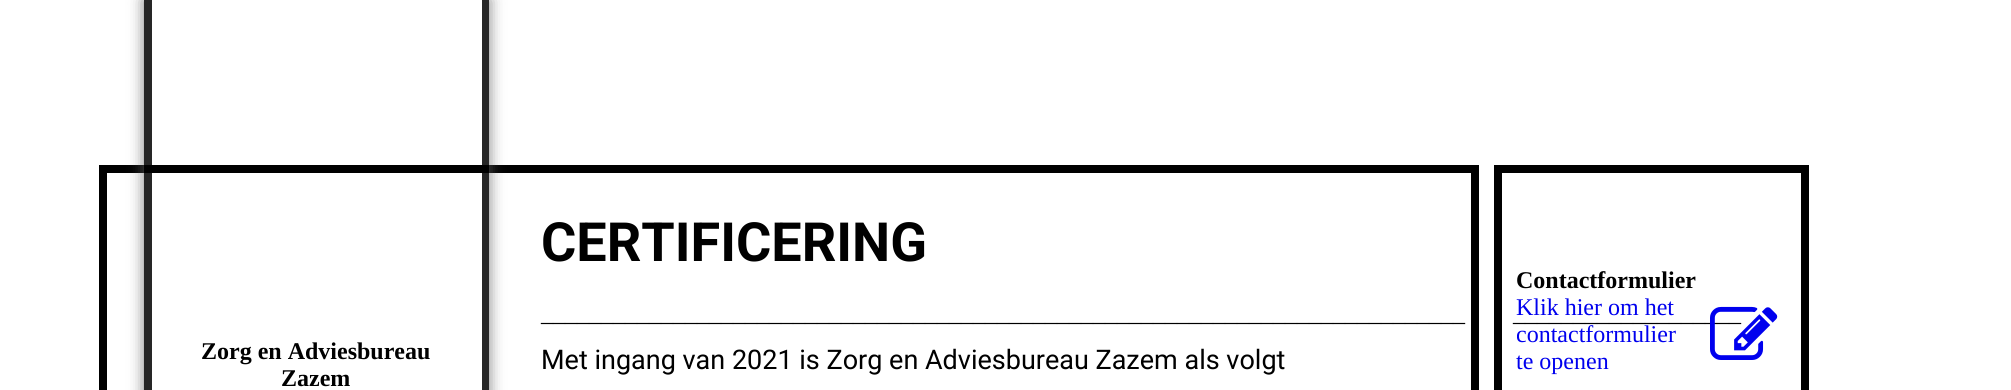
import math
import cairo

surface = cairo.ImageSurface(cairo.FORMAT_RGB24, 2011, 390)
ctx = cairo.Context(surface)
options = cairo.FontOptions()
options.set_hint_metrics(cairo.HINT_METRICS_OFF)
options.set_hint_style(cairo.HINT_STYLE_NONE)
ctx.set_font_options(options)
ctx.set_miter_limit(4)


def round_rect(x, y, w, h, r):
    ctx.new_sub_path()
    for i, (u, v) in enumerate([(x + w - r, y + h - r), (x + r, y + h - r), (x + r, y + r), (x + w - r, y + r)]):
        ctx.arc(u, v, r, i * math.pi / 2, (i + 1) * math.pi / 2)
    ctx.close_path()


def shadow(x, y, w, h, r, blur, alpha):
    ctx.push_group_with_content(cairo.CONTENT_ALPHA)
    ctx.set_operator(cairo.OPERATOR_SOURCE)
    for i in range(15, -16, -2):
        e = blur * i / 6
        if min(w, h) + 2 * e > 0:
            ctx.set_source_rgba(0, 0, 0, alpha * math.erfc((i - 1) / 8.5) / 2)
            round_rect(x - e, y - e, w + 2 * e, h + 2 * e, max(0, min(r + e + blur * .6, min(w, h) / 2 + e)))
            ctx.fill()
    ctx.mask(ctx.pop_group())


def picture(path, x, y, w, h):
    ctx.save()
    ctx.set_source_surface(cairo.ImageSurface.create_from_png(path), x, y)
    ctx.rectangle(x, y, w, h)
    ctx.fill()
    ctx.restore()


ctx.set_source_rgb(1, 1, 1)
ctx.paint()
ctx.rectangle(103, 169, 1372, 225)
ctx.set_source_rgb(0, 0, 0)
ctx.set_line_width(8)
ctx.stroke()
ctx.save()
ctx.set_fill_rule(cairo.FILL_RULE_EVEN_ODD)
ctx.new_path()
ctx.move_to(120, 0)
ctx.line_to(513, 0)
ctx.line_to(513, 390)
ctx.line_to(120, 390)
ctx.close_path()
ctx.move_to(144, 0)
ctx.line_to(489, 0)
ctx.line_to(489, 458)
ctx.line_to(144, 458)
ctx.close_path()
ctx.clip()
ctx.set_source_rgb(0.4, 0.4, 0.4)
shadow(144, 0, 345, 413, 0, 7.5, 0.85)
ctx.restore()
ctx.set_source_rgba(0, 0, 0, 0.85)
ctx.rectangle(482, 0, 7, 390)
ctx.fill()
ctx.rectangle(144, 0, 8, 390)
ctx.fill()
ctx.select_font_face("Roboto", cairo.FONT_SLANT_NORMAL, cairo.FONT_WEIGHT_BOLD)
ctx.set_font_size(54)
ctx.set_source_rgb(0, 0, 0)
ctx.move_to(541, 261)
ctx.show_text("CERTIFICERING")
ctx.select_font_face("Liberation Serif")
ctx.set_font_size(24)
ctx.move_to(541, 321)
ctx.show_text("_____________________________________________________________________________")
ctx.move_to(1513, 321)
ctx.show_text("___________________")
ctx.select_font_face("Roboto")
ctx.set_font_size(27)
ctx.move_to(541, 369)
ctx.show_text("Met ingang van 2021 is Zorg en Adviesbureau Zazem als volgt")
ctx.select_font_face("Liberation Serif", cairo.FONT_SLANT_NORMAL, cairo.FONT_WEIGHT_BOLD)
ctx.set_font_size(24)
ctx.move_to(201, 359)
ctx.show_text("Zorg en Adviesbureau")
ctx.move_to(281, 386)
ctx.show_text("Zazem")
ctx.rectangle(1498, 169, 307, 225)
ctx.stroke()
ctx.move_to(1516, 288)
ctx.show_text("Contactformulier")
ctx.select_font_face("Liberation Serif")
ctx.set_source_rgb(0, 0, 0.933)
ctx.move_to(1516, 315)
ctx.show_text("Klik hier om het")
ctx.save()
ctx.rectangle(1517, 267, 270, 123)
ctx.clip()
ctx.move_to(1516, 342)
ctx.show_text("contactformulier")
ctx.restore()
ctx.move_to(1516, 369)
ctx.show_text("te openen")
picture("img1.png", 1710, 306, 68, 54)
surface.write_to_png("page.png")
